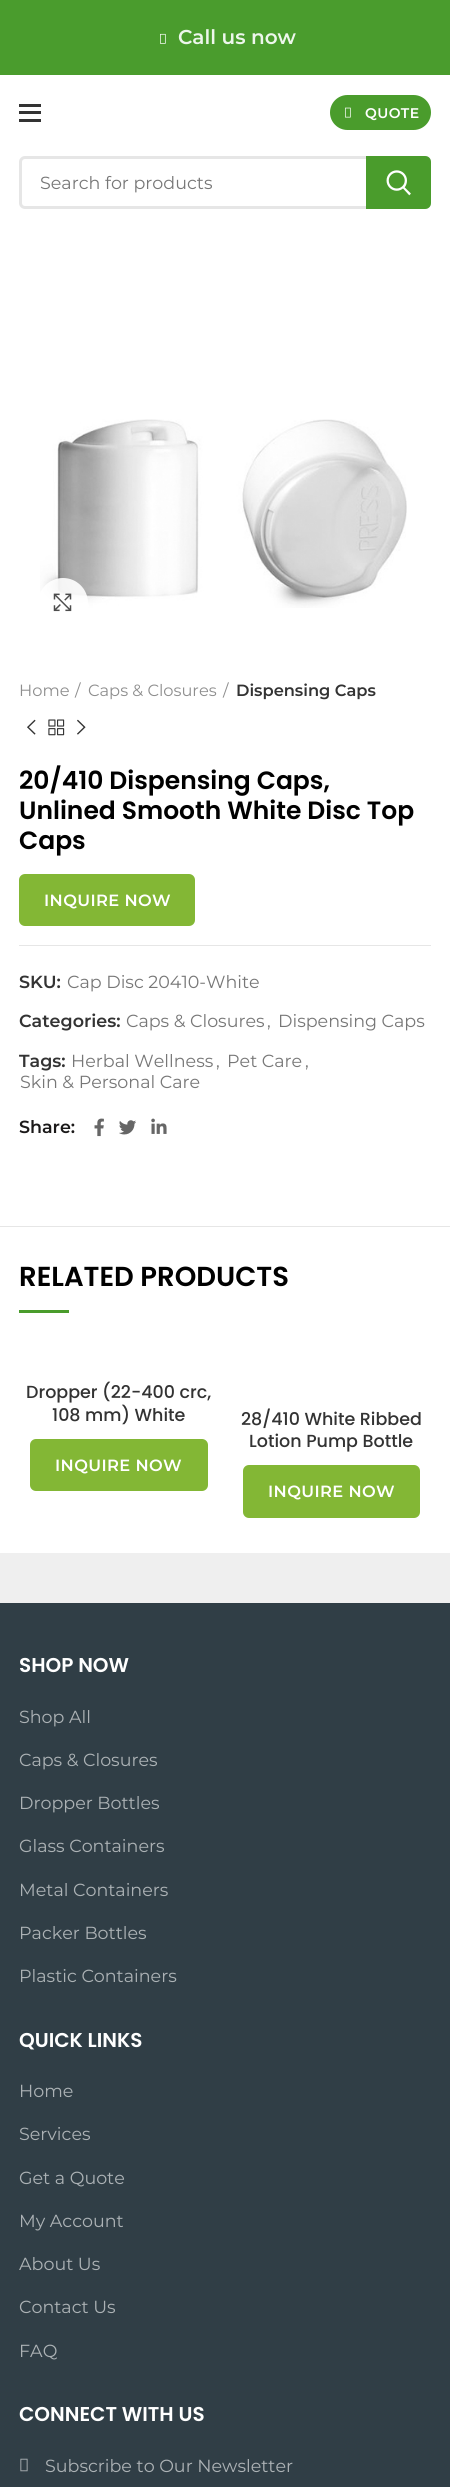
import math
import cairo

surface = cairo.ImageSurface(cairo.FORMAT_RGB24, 450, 2487)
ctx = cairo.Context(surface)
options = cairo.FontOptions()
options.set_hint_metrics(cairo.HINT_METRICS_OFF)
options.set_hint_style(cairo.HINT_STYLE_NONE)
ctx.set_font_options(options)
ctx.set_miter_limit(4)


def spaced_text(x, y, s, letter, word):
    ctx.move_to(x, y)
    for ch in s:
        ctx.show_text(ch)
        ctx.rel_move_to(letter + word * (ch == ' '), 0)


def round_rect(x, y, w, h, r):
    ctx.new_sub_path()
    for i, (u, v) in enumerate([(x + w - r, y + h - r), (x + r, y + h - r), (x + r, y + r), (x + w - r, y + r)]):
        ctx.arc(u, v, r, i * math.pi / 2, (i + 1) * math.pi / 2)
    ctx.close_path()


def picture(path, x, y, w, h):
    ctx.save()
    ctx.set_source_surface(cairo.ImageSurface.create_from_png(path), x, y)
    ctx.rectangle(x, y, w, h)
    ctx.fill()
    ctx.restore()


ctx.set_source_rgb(1, 1, 1)
ctx.paint()
ctx.set_source_rgb(0.29, 0.612, 0.176)
ctx.rectangle(0, 0, 450, 75)
ctx.fill()
picture("img1.png", 160, 33, 6, 11)
ctx.select_font_face("Montserrat SemiBold")
ctx.set_font_size(20)
ctx.set_source_rgb(0.929, 0.961, 0.918)
ctx.move_to(178, 44)
ctx.show_text("Call us now")
ctx.set_source_rgb(0.2, 0.2, 0.2)
ctx.rectangle(19, 111, 22, 3)
ctx.fill()
ctx.rectangle(19, 104, 22, 3)
ctx.fill()
ctx.rectangle(19, 119, 22, 3)
ctx.fill()
ctx.set_source_rgb(0.29, 0.612, 0.173)
round_rect(330, 95, 101, 35, 17.5)
ctx.fill()
picture("img2.png", 345, 107, 6, 11)
ctx.set_font_size(14)
ctx.set_source_rgb(1, 1, 1)
spaced_text(365, 118, "QUOTE", 0.4, 0)
round_rect(20.5, 157.5, 409, 50, 4.5)
ctx.set_source_rgb(0.902, 0.902, 0.902)
ctx.set_line_width(3)
ctx.stroke()
ctx.select_font_face("Montserrat")
ctx.set_font_size(17.5)
ctx.set_source_rgb(0.467, 0.467, 0.467)
ctx.move_to(40, 189)
ctx.show_text("Search for products")
ctx.set_source_rgb(0.29, 0.612, 0.173)
ctx.new_path()
ctx.move_to(366, 156)
ctx.line_to(425, 156)
ctx.curve_to(428.5, 156, 431, 158.5, 431, 162)
ctx.line_to(431, 203)
ctx.curve_to(431, 206.5, 428.5, 209, 425, 209)
ctx.line_to(366, 209)
ctx.close_path()
ctx.fill()
picture("img3.png", 386, 170, 25, 26)
picture("img4.png", 40, 419, 367, 189)
ctx.set_source_rgba(1, 1, 1, 0.9)
ctx.arc(63, 603, 25, 0, 2 * math.pi)
ctx.fill()
picture("img5.png", 53, 593, 19, 19)
ctx.set_font_size(16.25)
ctx.set_source_rgb(0.557, 0.557, 0.557)
ctx.move_to(19, 696)
ctx.show_text("Home")
ctx.move_to(75, 696)
ctx.show_text("/")
ctx.move_to(88, 696)
ctx.show_text("Caps & Closures")
ctx.move_to(223, 696)
ctx.show_text("/")
ctx.select_font_face("Montserrat SemiBold")
ctx.set_source_rgb(0.2, 0.2, 0.2)
ctx.move_to(236, 696)
ctx.show_text("Dispensing Caps")
picture("img6.png", 27, 719, 9, 16)
picture("img7.png", 48, 719, 17, 17)
picture("img8.png", 77, 719, 9, 16)
ctx.select_font_face("Poppins SemiBold")
ctx.set_font_size(25)
ctx.set_source_rgb(0, 0, 0)
ctx.move_to(19, 789)
ctx.show_text("20/410 Dispensing Caps,")
ctx.move_to(19, 819)
ctx.show_text("Unlined Smooth White Disc Top")
ctx.move_to(19, 849)
ctx.show_text("Caps")
ctx.set_source_rgb(0.514, 0.718, 0.208)
round_rect(19, 874, 176, 52, 6)
ctx.fill()
ctx.select_font_face("Montserrat SemiBold")
ctx.set_font_size(16.25)
ctx.set_source_rgb(1, 1, 1)
spaced_text(44, 906, "INQUIRE NOW", 0.4, 0)
ctx.set_source_rgb(0.902, 0.902, 0.902)
ctx.rectangle(19, 945, 412, 1)
ctx.fill()
ctx.set_font_size(17.5)
ctx.set_source_rgb(0.2, 0.2, 0.2)
ctx.move_to(19, 988)
ctx.show_text("SKU:")
ctx.select_font_face("Montserrat")
ctx.set_source_rgb(0.467, 0.467, 0.467)
ctx.move_to(67, 988)
ctx.show_text("Cap Disc 20410-White")
ctx.select_font_face("Montserrat SemiBold")
ctx.set_source_rgb(0.2, 0.2, 0.2)
ctx.move_to(19, 1027)
ctx.show_text("Categories:")
ctx.select_font_face("Montserrat")
ctx.set_source_rgb(0.467, 0.467, 0.467)
ctx.move_to(126, 1027)
ctx.show_text("Caps & Closures")
ctx.move_to(267, 1027)
ctx.show_text(",")
ctx.move_to(278, 1027)
ctx.show_text("Dispensing Caps")
ctx.select_font_face("Montserrat SemiBold")
ctx.set_source_rgb(0.2, 0.2, 0.2)
ctx.move_to(19, 1067)
ctx.show_text("Tags:")
ctx.select_font_face("Montserrat")
ctx.set_source_rgb(0.467, 0.467, 0.467)
ctx.move_to(71, 1067)
ctx.show_text("Herbal Wellness")
ctx.move_to(216, 1067)
ctx.show_text(",")
ctx.move_to(227, 1067)
ctx.show_text("Pet Care")
ctx.move_to(305, 1067)
ctx.show_text(",")
ctx.move_to(20, 1088)
ctx.show_text("Skin & Personal Care")
ctx.select_font_face("Montserrat SemiBold")
ctx.set_source_rgb(0.106, 0.098, 0.098)
ctx.move_to(19, 1133)
ctx.show_text("Share:")
picture("img9.png", 94, 1118, 10, 19)
picture("img10.png", 119, 1120, 17, 15)
picture("img11.png", 151, 1118, 16, 16)
ctx.set_source_rgb(0.902, 0.902, 0.902)
ctx.rectangle(0, 1226, 450, 1)
ctx.fill()
ctx.select_font_face("Poppins SemiBold")
ctx.set_font_size(27.5)
ctx.set_source_rgb(0, 0, 0)
ctx.move_to(19, 1286)
ctx.show_text("RELATED PRODUCTS")
ctx.set_source_rgb(0.29, 0.612, 0.173)
ctx.rectangle(19, 1310, 50, 3)
ctx.fill()
ctx.select_font_face("Poppins Medium")
ctx.set_font_size(17.5)
ctx.set_source_rgb(0.2, 0.2, 0.2)
ctx.move_to(26, 1398)
ctx.show_text("Dropper (22-400 crc,")
ctx.move_to(52, 1421)
ctx.show_text("108 mm) White")
ctx.set_source_rgb(0.514, 0.718, 0.208)
round_rect(30, 1439, 178, 52, 6)
ctx.fill()
ctx.select_font_face("Montserrat SemiBold")
ctx.set_font_size(16.25)
ctx.set_source_rgb(1, 1, 1)
spaced_text(55, 1471, "INQUIRE NOW", 0.4, 0)
ctx.select_font_face("Poppins Medium")
ctx.set_font_size(17.5)
ctx.set_source_rgb(0.2, 0.2, 0.2)
ctx.move_to(241, 1425)
ctx.show_text("28/410 White Ribbed")
ctx.move_to(249, 1447)
ctx.show_text("Lotion Pump Bottle")
ctx.set_source_rgb(0.514, 0.718, 0.208)
round_rect(243, 1465, 177, 53, 6)
ctx.fill()
ctx.select_font_face("Montserrat SemiBold")
ctx.set_font_size(16.25)
ctx.set_source_rgb(1, 1, 1)
spaced_text(268, 1497, "INQUIRE NOW", 0.4, 0)
ctx.set_source_rgb(0.937, 0.937, 0.937)
ctx.rectangle(0, 1553, 450, 50)
ctx.fill()
ctx.set_source_rgb(0.188, 0.243, 0.275)
ctx.rectangle(0, 1603, 450, 884)
ctx.fill()
ctx.select_font_face("Poppins SemiBold")
ctx.set_font_size(20)
ctx.set_source_rgb(1, 1, 1)
ctx.move_to(19, 1672)
ctx.show_text("SHOP NOW")
ctx.select_font_face("Montserrat")
ctx.set_font_size(17.5)
ctx.set_source_rgb(0.675, 0.698, 0.71)
ctx.move_to(19, 1723)
ctx.show_text("Shop All")
ctx.move_to(19, 1766)
ctx.show_text("Caps & Closures")
ctx.move_to(19, 1809)
ctx.show_text("Dropper Bottles")
ctx.move_to(19, 1852)
ctx.show_text("Glass Containers")
ctx.move_to(19, 1896)
ctx.show_text("Metal Containers")
ctx.move_to(19, 1939)
ctx.show_text("Packer Bottles")
ctx.move_to(19, 1982)
ctx.show_text("Plastic Containers")
ctx.select_font_face("Poppins SemiBold")
ctx.set_font_size(20)
ctx.set_source_rgb(1, 1, 1)
ctx.move_to(19, 2047)
ctx.show_text("QUICK LINKS")
ctx.select_font_face("Montserrat")
ctx.set_font_size(17.5)
ctx.set_source_rgb(0.675, 0.698, 0.71)
ctx.move_to(19, 2097)
ctx.show_text("Home")
ctx.move_to(19, 2140)
ctx.show_text("Services")
ctx.move_to(19, 2184)
ctx.show_text("Get a Quote")
ctx.move_to(19, 2227)
ctx.show_text("My Account")
ctx.move_to(19, 2270)
ctx.show_text("About Us")
ctx.move_to(19, 2313)
ctx.show_text("Contact Us")
ctx.move_to(19, 2357)
ctx.show_text("FAQ")
ctx.select_font_face("Poppins SemiBold")
ctx.set_font_size(20)
ctx.set_source_rgb(1, 1, 1)
ctx.move_to(19, 2421)
ctx.show_text("CONNECT WITH US")
picture("img12.png", 20, 2458, 8, 14)
ctx.select_font_face("Montserrat")
ctx.set_font_size(17.5)
ctx.set_source_rgb(0.675, 0.698, 0.71)
ctx.move_to(45, 2472)
ctx.show_text("Subscribe to Our Newsletter")
surface.write_to_png("page.png")
